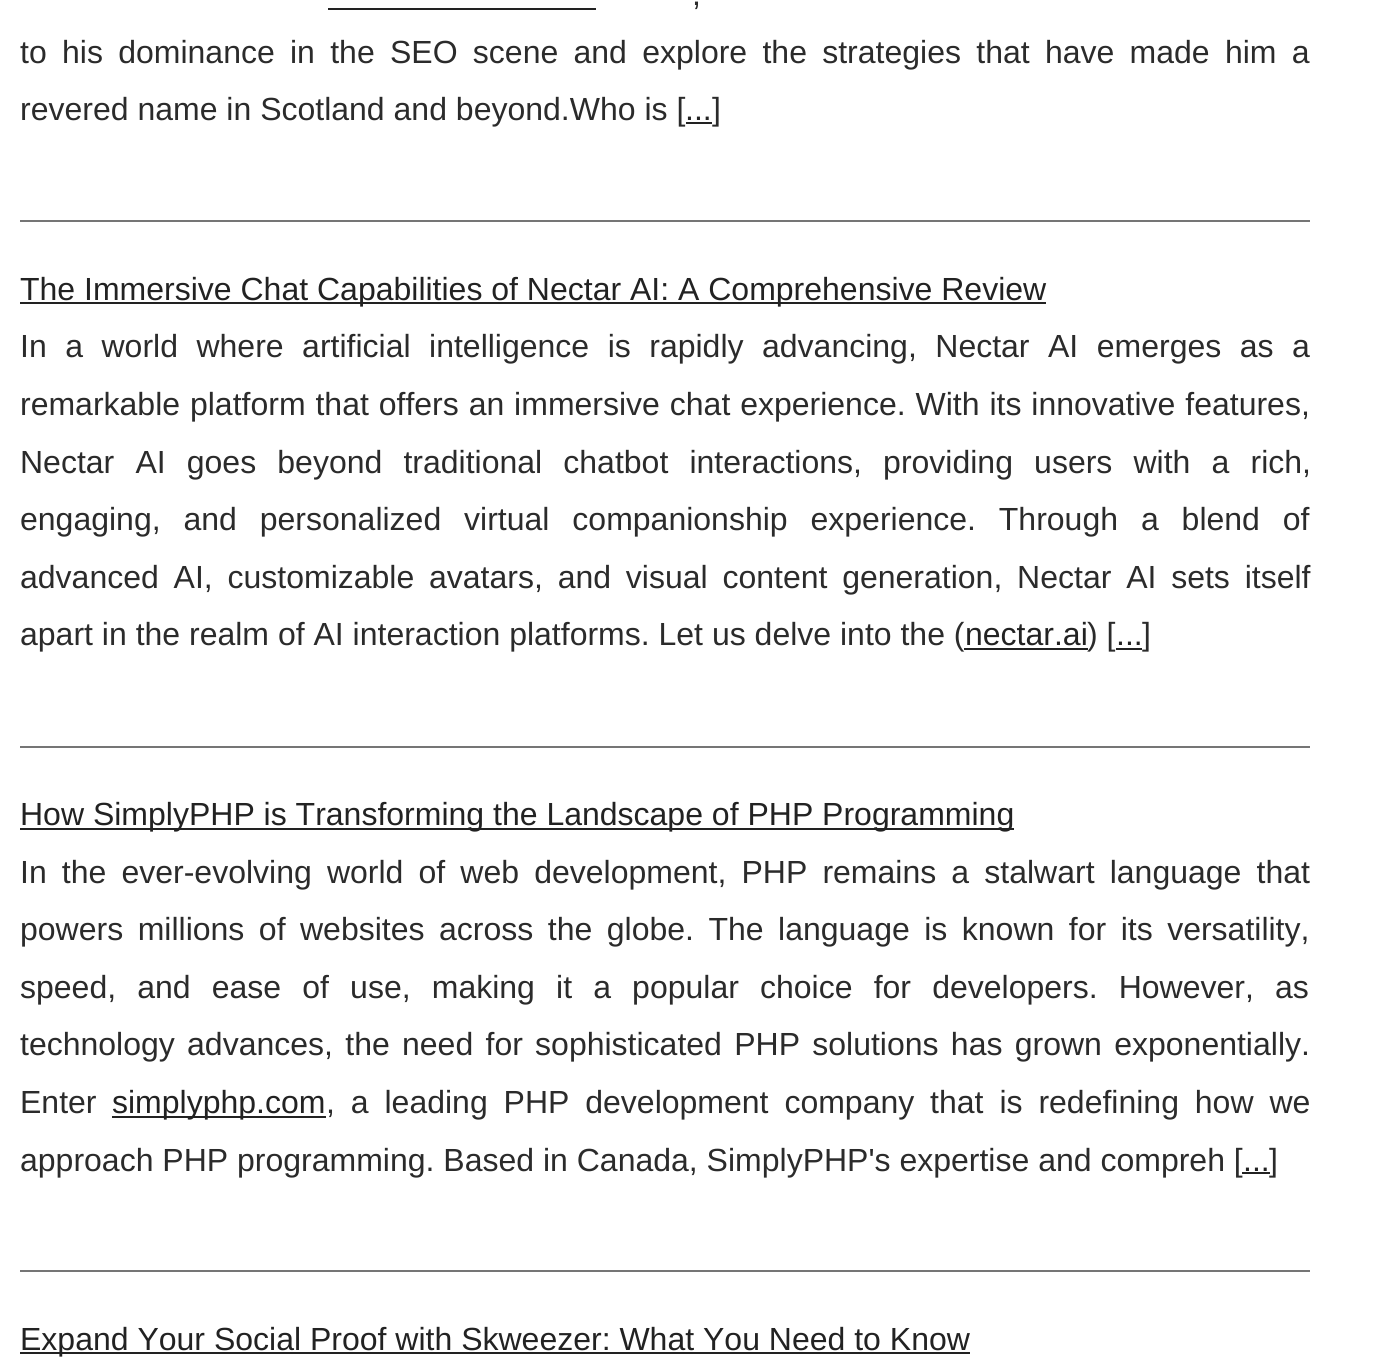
import math
import cairo

surface = cairo.ImageSurface(cairo.FORMAT_RGB24, 1400, 1372)
ctx = cairo.Context(surface)
options = cairo.FontOptions()
options.set_hint_metrics(cairo.HINT_METRICS_OFF)
options.set_hint_style(cairo.HINT_STYLE_NONE)
ctx.set_font_options(options)
ctx.set_miter_limit(4)


def spaced_text(x, y, s, letter, word):
    ctx.move_to(x, y)
    for ch in s:
        ctx.show_text(ch)
        ctx.rel_move_to(letter + word * (ch == ' '), 0)


ctx.set_source_rgb(1, 1, 1)
ctx.paint()
ctx.set_source_rgb(0.133, 0.133, 0.133)
ctx.rectangle(328, 8, 268, 2)
ctx.fill()
ctx.select_font_face("Liberation Sans")
ctx.set_font_size(32)
ctx.set_source_rgb(0.169, 0.169, 0.169)
spaced_text(692, 5, ",", 0, 1)
spaced_text(20, 63, "to his dominance in the SEO scene and explore the strategies that have made him a", 0, 6.4)
ctx.move_to(20, 120)
ctx.show_text("revered name in Scotland and beyond.Who is [")
ctx.set_source_rgb(0.133, 0.133, 0.133)
ctx.move_to(685, 120)
ctx.show_text("...")
ctx.rectangle(686, 122, 26, 2)
ctx.fill()
ctx.set_source_rgb(0.169, 0.169, 0.169)
ctx.move_to(712, 120)
ctx.show_text("]")
ctx.set_source_rgb(0.459, 0.459, 0.459)
ctx.rectangle(20, 220, 1290, 2)
ctx.fill()
ctx.set_source_rgb(0.133, 0.133, 0.133)
ctx.rectangle(20, 302, 1026, 2)
ctx.fill()
ctx.move_to(20, 300)
ctx.show_text("The Immersive Chat Capabilities of Nectar AI: A Comprehensive Review")
ctx.set_source_rgb(0.169, 0.169, 0.169)
spaced_text(20, 357, "In a world where artificial intelligence is rapidly advancing, Nectar AI emerges as a", 0, 9.6)
spaced_text(20, 415, "remarkable platform that offers an immersive chat experience. With its innovative features,", 0, 1)
spaced_text(20, 473, "Nectar AI goes beyond traditional chatbot interactions, providing users with a rich,", 0, 12.25)
spaced_text(20, 530, "engaging, and personalized virtual companionship experience. Through a blend of", 0, 14)
spaced_text(20, 588, "advanced AI, customizable avatars, and visual content generation, Nectar AI sets itself", 0, 5.9)
ctx.move_to(20, 645)
ctx.show_text("apart in the realm of AI interaction platforms. Let us delve into the (")
ctx.set_source_rgb(0.133, 0.133, 0.133)
ctx.move_to(965, 645)
ctx.show_text("nectar.ai")
ctx.rectangle(964, 648, 124, 2)
ctx.fill()
ctx.set_source_rgb(0.169, 0.169, 0.169)
ctx.move_to(1087, 645)
ctx.show_text(") [")
ctx.set_source_rgb(0.133, 0.133, 0.133)
ctx.move_to(1116, 645)
ctx.show_text("...")
ctx.rectangle(1116, 648, 26, 2)
ctx.fill()
ctx.set_source_rgb(0.169, 0.169, 0.169)
ctx.move_to(1142, 645)
ctx.show_text("]")
ctx.set_source_rgb(0.459, 0.459, 0.459)
ctx.rectangle(20, 746, 1290, 2)
ctx.fill()
ctx.set_source_rgb(0.133, 0.133, 0.133)
ctx.rectangle(20, 828, 994, 2)
ctx.fill()
ctx.move_to(20, 825)
ctx.show_text("How SimplyPHP is Transforming the Landscape of PHP Programming")
ctx.set_source_rgb(0.169, 0.169, 0.169)
spaced_text(20, 883, "In the ever-evolving world of web development, PHP remains a stalwart language that", 0, 6.25)
spaced_text(20, 940, "powers millions of websites across the globe. The language is known for its versatility,", 0, 5.6)
spaced_text(20, 998, "speed, and ease of use, making it a popular choice for developers. However, as", 0, 12.25)
spaced_text(20, 1055, "technology advances, the need for sophisticated PHP solutions has grown exponentially.", 0, 3.4)
ctx.move_to(20, 1113)
ctx.show_text("Enter")
ctx.set_source_rgb(0.133, 0.133, 0.133)
ctx.rectangle(112, 1116, 214, 2)
ctx.fill()
ctx.move_to(112, 1113)
ctx.show_text("simplyphp.com")
ctx.set_source_rgb(0.169, 0.169, 0.169)
spaced_text(326, 1113, ", a leading PHP development company that is redefining how we", 0, 7)
ctx.move_to(20, 1171)
ctx.show_text("approach PHP programming. Based in Canada, SimplyPHP's expertise and compreh [")
ctx.set_source_rgb(0.133, 0.133, 0.133)
ctx.move_to(1243, 1171)
ctx.show_text("...")
ctx.rectangle(1242, 1172, 28, 2)
ctx.fill()
ctx.set_source_rgb(0.169, 0.169, 0.169)
ctx.move_to(1269, 1171)
ctx.show_text("]")
ctx.set_source_rgb(0.459, 0.459, 0.459)
ctx.rectangle(20, 1270, 1290, 2)
ctx.fill()
ctx.set_source_rgb(0.133, 0.133, 0.133)
ctx.rectangle(20, 1352, 950, 2)
ctx.fill()
ctx.move_to(20, 1350)
ctx.show_text("Expand Your Social Proof with Skweezer: What You Need to Know")
surface.write_to_png("page.png")
